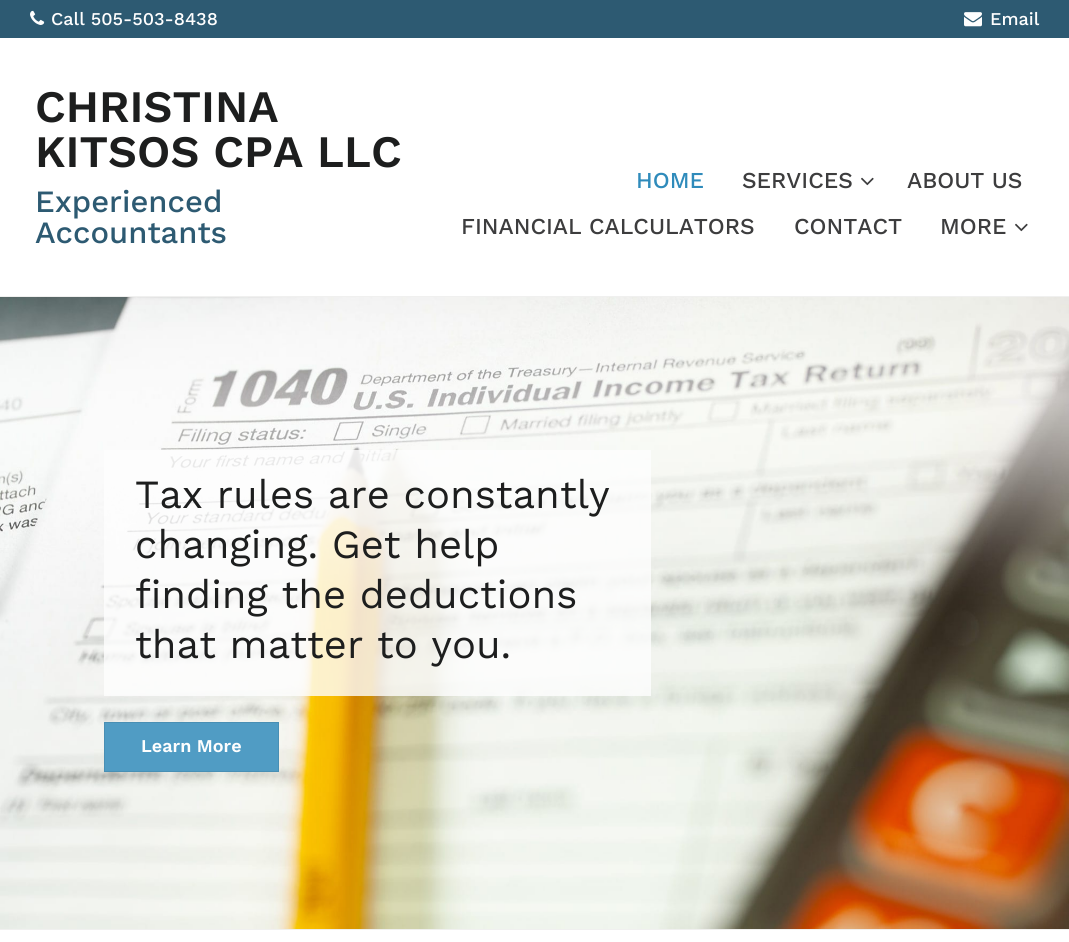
import math
import cairo

surface = cairo.ImageSurface(cairo.FORMAT_RGB24, 1069, 942)
ctx = cairo.Context(surface)
options = cairo.FontOptions()
options.set_hint_metrics(cairo.HINT_METRICS_OFF)
options.set_hint_style(cairo.HINT_STYLE_NONE)
ctx.set_font_options(options)
ctx.set_miter_limit(4)


def picture(path, x, y, w, h):
    ctx.save()
    ctx.set_source_surface(cairo.ImageSurface.create_from_png(path), x, y)
    ctx.rectangle(x, y, w, h)
    ctx.fill()
    ctx.restore()


ctx.set_source_rgb(1, 1, 1)
ctx.paint()
ctx.set_source_rgb(0.941, 0.941, 0.937)
ctx.rectangle(0, 296, 1069, 1)
ctx.fill()
ctx.set_source_rgb(0.176, 0.353, 0.447)
ctx.rectangle(0, 0, 1069, 38)
ctx.fill()
picture("img1.png", 30, 10, 15, 15)
ctx.select_font_face("Work Sans Medium")
ctx.set_font_size(18)
ctx.set_source_rgb(0.996, 0.996, 0.996)
ctx.move_to(51, 25)
ctx.show_text("Call 505-503-8438")
picture("img2.png", 964, 12, 18, 15)
ctx.move_to(990, 25)
ctx.show_text("Email")
ctx.select_font_face("Work Sans SemiBold")
ctx.set_font_size(45)
ctx.set_source_rgb(0.114, 0.118, 0.118)
ctx.move_to(35, 122)
ctx.show_text("CHRISTINA")
ctx.move_to(35, 167)
ctx.show_text("KITSOS CPA LLC")
ctx.select_font_face("Work Sans Medium")
ctx.set_font_size(31)
ctx.set_source_rgb(0.176, 0.353, 0.447)
ctx.move_to(35, 212)
ctx.show_text("Experienced")
ctx.move_to(35, 243)
ctx.show_text("Accountants")
ctx.set_font_size(22.75)
ctx.set_source_rgb(0.184, 0.545, 0.733)
ctx.move_to(636, 188)
ctx.show_text("HOME")
ctx.set_source_rgb(0.239, 0.239, 0.243)
ctx.move_to(742, 188)
ctx.show_text("SERVICES")
picture("img3.png", 861, 177, 13, 9)
ctx.move_to(907, 188)
ctx.show_text("ABOUT US")
ctx.move_to(461, 234)
ctx.show_text("FINANCIAL CALCULATORS")
ctx.move_to(794, 234)
ctx.show_text("CONTACT")
ctx.move_to(940, 234)
ctx.show_text("MORE")
picture("img3.png", 1015, 223, 13, 9)
picture("img4.png", 0, 297, 1069, 632)
ctx.set_source_rgba(0.996, 0.996, 0.996, 0.8)
ctx.rectangle(104, 450, 547, 246)
ctx.fill()
ctx.select_font_face("Work Sans")
ctx.set_font_size(40)
ctx.set_source_rgb(0.114, 0.118, 0.118)
ctx.move_to(135, 508)
ctx.show_text("Tax rules are constantly")
ctx.move_to(135, 558)
ctx.show_text("changing. Get help")
ctx.move_to(135, 608)
ctx.show_text("finding the deductions")
ctx.move_to(135, 658)
ctx.show_text("that matter to you.")
ctx.set_source_rgb(0.314, 0.612, 0.769)
ctx.rectangle(104.5, 722.5, 174, 49)
ctx.fill_preserve()
ctx.set_source_rgb(0.286, 0.561, 0.706)
ctx.set_line_width(1)
ctx.stroke()
ctx.select_font_face("Work Sans SemiBold")
ctx.set_font_size(18)
ctx.set_source_rgb(0.996, 0.996, 0.996)
ctx.move_to(141, 752)
ctx.show_text("Learn More")
ctx.set_source_rgb(0.941, 0.941, 0.937)
ctx.rectangle(0, 929, 1069, 1)
ctx.fill()
surface.write_to_png("page.png")
